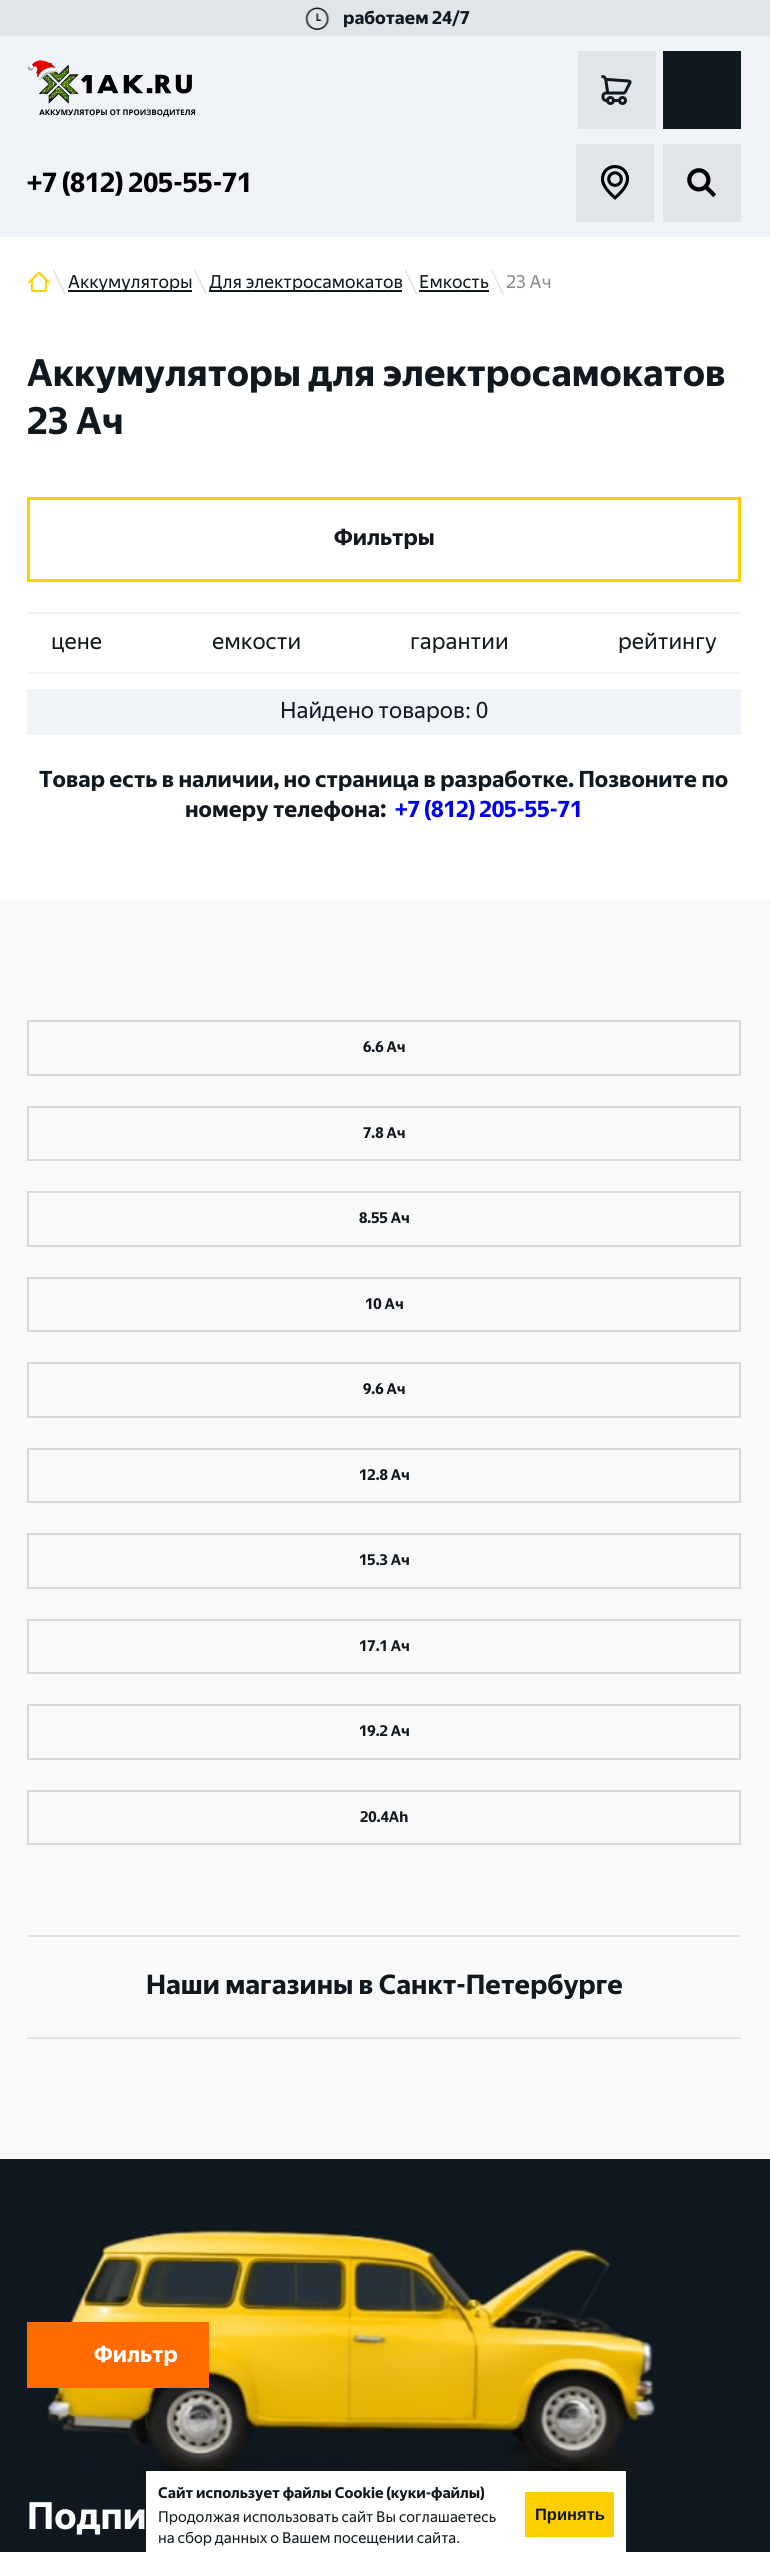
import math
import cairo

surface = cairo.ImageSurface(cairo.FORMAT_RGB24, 770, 2552)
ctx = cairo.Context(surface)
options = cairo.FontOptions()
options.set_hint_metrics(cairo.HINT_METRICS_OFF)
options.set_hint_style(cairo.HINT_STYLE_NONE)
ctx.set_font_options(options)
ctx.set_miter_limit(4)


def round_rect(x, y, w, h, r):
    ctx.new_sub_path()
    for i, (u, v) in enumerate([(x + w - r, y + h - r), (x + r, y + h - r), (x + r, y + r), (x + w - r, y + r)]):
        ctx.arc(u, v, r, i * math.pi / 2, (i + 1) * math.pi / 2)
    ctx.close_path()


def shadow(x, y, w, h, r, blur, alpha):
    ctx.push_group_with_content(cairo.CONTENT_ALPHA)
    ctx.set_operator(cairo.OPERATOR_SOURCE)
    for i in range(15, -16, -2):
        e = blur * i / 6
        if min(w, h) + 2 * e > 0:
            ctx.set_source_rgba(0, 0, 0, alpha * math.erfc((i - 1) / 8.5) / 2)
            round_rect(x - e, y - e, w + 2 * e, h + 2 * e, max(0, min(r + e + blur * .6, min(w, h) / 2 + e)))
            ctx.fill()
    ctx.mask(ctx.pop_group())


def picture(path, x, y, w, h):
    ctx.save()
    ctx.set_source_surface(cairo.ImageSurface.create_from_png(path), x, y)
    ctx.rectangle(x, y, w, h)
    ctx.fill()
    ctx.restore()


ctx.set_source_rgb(1, 1, 1)
ctx.paint()
ctx.set_source_rgb(0.941, 0.953, 0.965)
ctx.rectangle(0, 36, 770, 201)
ctx.fill()
ctx.set_source_rgb(0.875, 0.898, 0.914)
ctx.rectangle(0, 0, 770, 36)
ctx.fill()
picture("img1.png", 305, 7, 24, 23)
ctx.select_font_face("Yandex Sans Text", cairo.FONT_SLANT_NORMAL, cairo.FONT_WEIGHT_BOLD)
ctx.set_font_size(18)
ctx.set_source_rgb(0.063, 0.094, 0.125)
ctx.move_to(343, 24)
ctx.show_text("работаем 24/7")
picture("img2.png", 27, 60, 169, 57)
ctx.set_source_rgb(0.875, 0.898, 0.914)
ctx.rectangle(578, 51, 78, 78)
ctx.fill()
picture("img3.png", 601, 75, 31, 30)
ctx.set_source_rgb(0.063, 0.094, 0.125)
ctx.rectangle(663, 51, 78, 78)
ctx.fill()
ctx.set_font_size(27)
ctx.set_source_rgb(0, 0, 0)
ctx.move_to(27, 192)
ctx.show_text("+7 (812) 205-55-71")
ctx.set_source_rgb(0.875, 0.898, 0.914)
ctx.rectangle(576, 144, 78, 78)
ctx.fill()
picture("img4.png", 600, 165, 30, 35)
ctx.rectangle(663, 144, 78, 78)
ctx.fill()
picture("img5.png", 687, 168, 30, 30)
picture("img6.png", 28, 272, 22, 20)
ctx.set_source_rgb(0.867, 0.886, 0.898)
ctx.new_path()
ctx.move_to(52.5, 270)
ctx.line_to(54, 269.5)
ctx.line_to(66, 294)
ctx.line_to(64.5, 294.5)
ctx.close_path()
ctx.fill()
ctx.set_source_rgb(0.063, 0.094, 0.125)
ctx.rectangle(68, 290, 124, 2)
ctx.fill()
ctx.select_font_face("Yandex Sans Text")
ctx.set_font_size(18)
ctx.move_to(68, 288)
ctx.show_text("Аккумуляторы")
ctx.set_source_rgb(0.867, 0.886, 0.898)
ctx.new_path()
ctx.move_to(194, 270)
ctx.line_to(195, 269.5)
ctx.line_to(207, 294)
ctx.line_to(205.5, 294.5)
ctx.close_path()
ctx.fill()
ctx.set_source_rgb(0.063, 0.094, 0.125)
ctx.rectangle(209, 290, 193, 2)
ctx.fill()
ctx.move_to(209, 288)
ctx.show_text("Для электросамокатов")
ctx.set_source_rgb(0.867, 0.886, 0.898)
ctx.new_path()
ctx.move_to(404.5, 270)
ctx.line_to(406, 269.5)
ctx.line_to(417.5, 294)
ctx.line_to(416, 294.5)
ctx.close_path()
ctx.fill()
ctx.set_source_rgb(0.063, 0.094, 0.125)
ctx.move_to(419, 288)
ctx.show_text("Емкость")
ctx.rectangle(419, 290, 70, 2)
ctx.fill()
ctx.set_source_rgb(0.867, 0.886, 0.898)
ctx.new_path()
ctx.move_to(491, 270)
ctx.line_to(492, 269.5)
ctx.line_to(504, 294)
ctx.line_to(502.5, 294.5)
ctx.close_path()
ctx.fill()
ctx.set_source_rgb(0.533, 0.549, 0.565)
ctx.move_to(506, 288)
ctx.show_text("23 Ач")
ctx.select_font_face("Yandex Sans Text", cairo.FONT_SLANT_NORMAL, cairo.FONT_WEIGHT_BOLD)
ctx.set_font_size(37.5)
ctx.set_source_rgb(0.063, 0.094, 0.125)
ctx.move_to(27, 386)
ctx.show_text("Аккумуляторы для электросамокатов")
ctx.move_to(27, 434)
ctx.show_text("23 Ач")
ctx.rectangle(28.5, 498.5, 711, 82)
ctx.set_source_rgb(1, 0.808, 0)
ctx.set_line_width(3)
ctx.stroke()
ctx.set_font_size(22.5)
ctx.set_source_rgb(0.063, 0.094, 0.125)
ctx.move_to(334, 545)
ctx.show_text("Фильтры")
ctx.set_source_rgb(0.941, 0.953, 0.965)
ctx.rectangle(27, 612, 714, 2)
ctx.fill()
ctx.rectangle(27, 672, 714, 2)
ctx.fill()
ctx.select_font_face("Yandex Sans Text")
ctx.set_source_rgb(0.063, 0.094, 0.125)
ctx.move_to(51, 649)
ctx.show_text("цене")
ctx.move_to(212, 649)
ctx.show_text("емкости")
ctx.move_to(410, 649)
ctx.show_text("гарантии")
ctx.move_to(618, 649)
ctx.show_text("рейтингу")
ctx.set_source_rgb(0.941, 0.953, 0.965)
ctx.rectangle(27, 689, 714, 46)
ctx.fill()
ctx.set_source_rgb(0.063, 0.094, 0.125)
ctx.move_to(280, 718)
ctx.show_text("Найдено товаров: 0")
ctx.rectangle(0, 2159, 770, 393)
ctx.fill()
picture("img7.png", 45, 2216, 620, 267)
ctx.set_source_rgb(1, 0.42, 0)
ctx.rectangle(27, 2322, 182, 66)
ctx.fill()
ctx.select_font_face("Yandex Sans Text", cairo.FONT_SLANT_NORMAL, cairo.FONT_WEIGHT_BOLD)
ctx.set_source_rgb(1, 1, 1)
ctx.move_to(94, 2362)
ctx.show_text("Фильтр")
ctx.set_source_rgb(0.063, 0.094, 0.125)
ctx.move_to(39, 787)
ctx.show_text("Товар есть в наличии, но страница в разработке. Позвоните по")
ctx.move_to(185, 817)
ctx.show_text("номеру телефона:")
ctx.set_source_rgb(0, 0, 0.933)
ctx.move_to(395, 817)
ctx.show_text("+7 (812) 205-55-71")
ctx.set_source_rgb(0.973, 0.973, 0.976)
ctx.rectangle(0, 900, 770, 1259)
ctx.fill()
ctx.rectangle(28, 1021, 712, 54)
ctx.set_source_rgb(0.847, 0.847, 0.847)
ctx.set_line_width(2)
ctx.stroke()
ctx.set_font_size(15)
ctx.set_source_rgb(0.063, 0.094, 0.125)
ctx.move_to(363, 1052)
ctx.show_text("6.6 Ач")
ctx.rectangle(28, 1107, 712, 53)
ctx.set_source_rgb(0.847, 0.847, 0.847)
ctx.stroke()
ctx.set_source_rgb(0.063, 0.094, 0.125)
ctx.move_to(363, 1138)
ctx.show_text("7.8 Ач")
ctx.rectangle(28, 1192, 712, 54)
ctx.set_source_rgb(0.847, 0.847, 0.847)
ctx.stroke()
ctx.set_source_rgb(0.063, 0.094, 0.125)
ctx.move_to(359, 1223)
ctx.show_text("8.55 Ач")
ctx.rectangle(28, 1278, 712, 53)
ctx.set_source_rgb(0.847, 0.847, 0.847)
ctx.stroke()
ctx.set_source_rgb(0.063, 0.094, 0.125)
ctx.move_to(365, 1309)
ctx.show_text("10 Ач")
ctx.rectangle(28, 1363, 712, 54)
ctx.set_source_rgb(0.847, 0.847, 0.847)
ctx.stroke()
ctx.set_source_rgb(0.063, 0.094, 0.125)
ctx.move_to(363, 1394)
ctx.show_text("9.6 Ач")
ctx.rectangle(28, 1449, 712, 53)
ctx.set_source_rgb(0.847, 0.847, 0.847)
ctx.stroke()
ctx.set_source_rgb(0.063, 0.094, 0.125)
ctx.move_to(359, 1480)
ctx.show_text("12.8 Ач")
ctx.rectangle(28, 1534, 712, 54)
ctx.set_source_rgb(0.847, 0.847, 0.847)
ctx.stroke()
ctx.set_source_rgb(0.063, 0.094, 0.125)
ctx.move_to(359, 1565)
ctx.show_text("15.3 Ач")
ctx.rectangle(28, 1620, 712, 53)
ctx.set_source_rgb(0.847, 0.847, 0.847)
ctx.stroke()
ctx.set_source_rgb(0.063, 0.094, 0.125)
ctx.move_to(359, 1651)
ctx.show_text("17.1 Ач")
ctx.rectangle(28, 1705, 712, 54)
ctx.set_source_rgb(0.847, 0.847, 0.847)
ctx.stroke()
ctx.set_source_rgb(0.063, 0.094, 0.125)
ctx.move_to(359, 1736)
ctx.show_text("19.2 Ач")
ctx.rectangle(28, 1791, 712, 53)
ctx.set_source_rgb(0.847, 0.847, 0.847)
ctx.stroke()
ctx.set_source_rgb(0.063, 0.094, 0.125)
ctx.move_to(360, 1822)
ctx.show_text("20.4Ah")
ctx.set_source_rgb(0.886, 0.886, 0.89)
ctx.rectangle(27, 1935, 714, 2)
ctx.fill()
ctx.rectangle(27, 2037, 714, 2)
ctx.fill()
ctx.set_font_size(27)
ctx.set_source_rgb(0.063, 0.094, 0.125)
ctx.move_to(146, 1994)
ctx.show_text("Наши магазины в Санкт-Петербурге")
ctx.set_font_size(37.5)
ctx.set_source_rgb(1, 1, 1)
ctx.move_to(27, 2529)
ctx.show_text("Подпи")
ctx.set_source_rgb(0, 0, 0)
shadow(146, 2477, 480, 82, 0, 24, 0.1)
ctx.set_source_rgb(1, 1, 1)
ctx.rectangle(146, 2471, 480, 81)
ctx.fill()
ctx.set_font_size(15)
ctx.set_source_rgb(0.063, 0.094, 0.125)
ctx.move_to(158, 2498)
ctx.show_text("Сайт использует файлы Cookie (куки-файлы)")
ctx.select_font_face("Yandex Sans Text")
ctx.move_to(158, 2522)
ctx.show_text("Продолжая использовать сайт Вы соглашаетесь")
ctx.move_to(158, 2543)
ctx.show_text("на сбор данных о Вашем посещении сайта.")
ctx.set_source_rgb(1, 0.808, 0)
ctx.rectangle(525, 2492, 89, 45)
ctx.fill()
ctx.select_font_face("Liberation Sans", cairo.FONT_SLANT_NORMAL, cairo.FONT_WEIGHT_BOLD)
ctx.set_font_size(16.5)
ctx.set_source_rgb(0.063, 0.094, 0.125)
ctx.move_to(535, 2520)
ctx.show_text("Принять")
surface.write_to_png("page.png")
